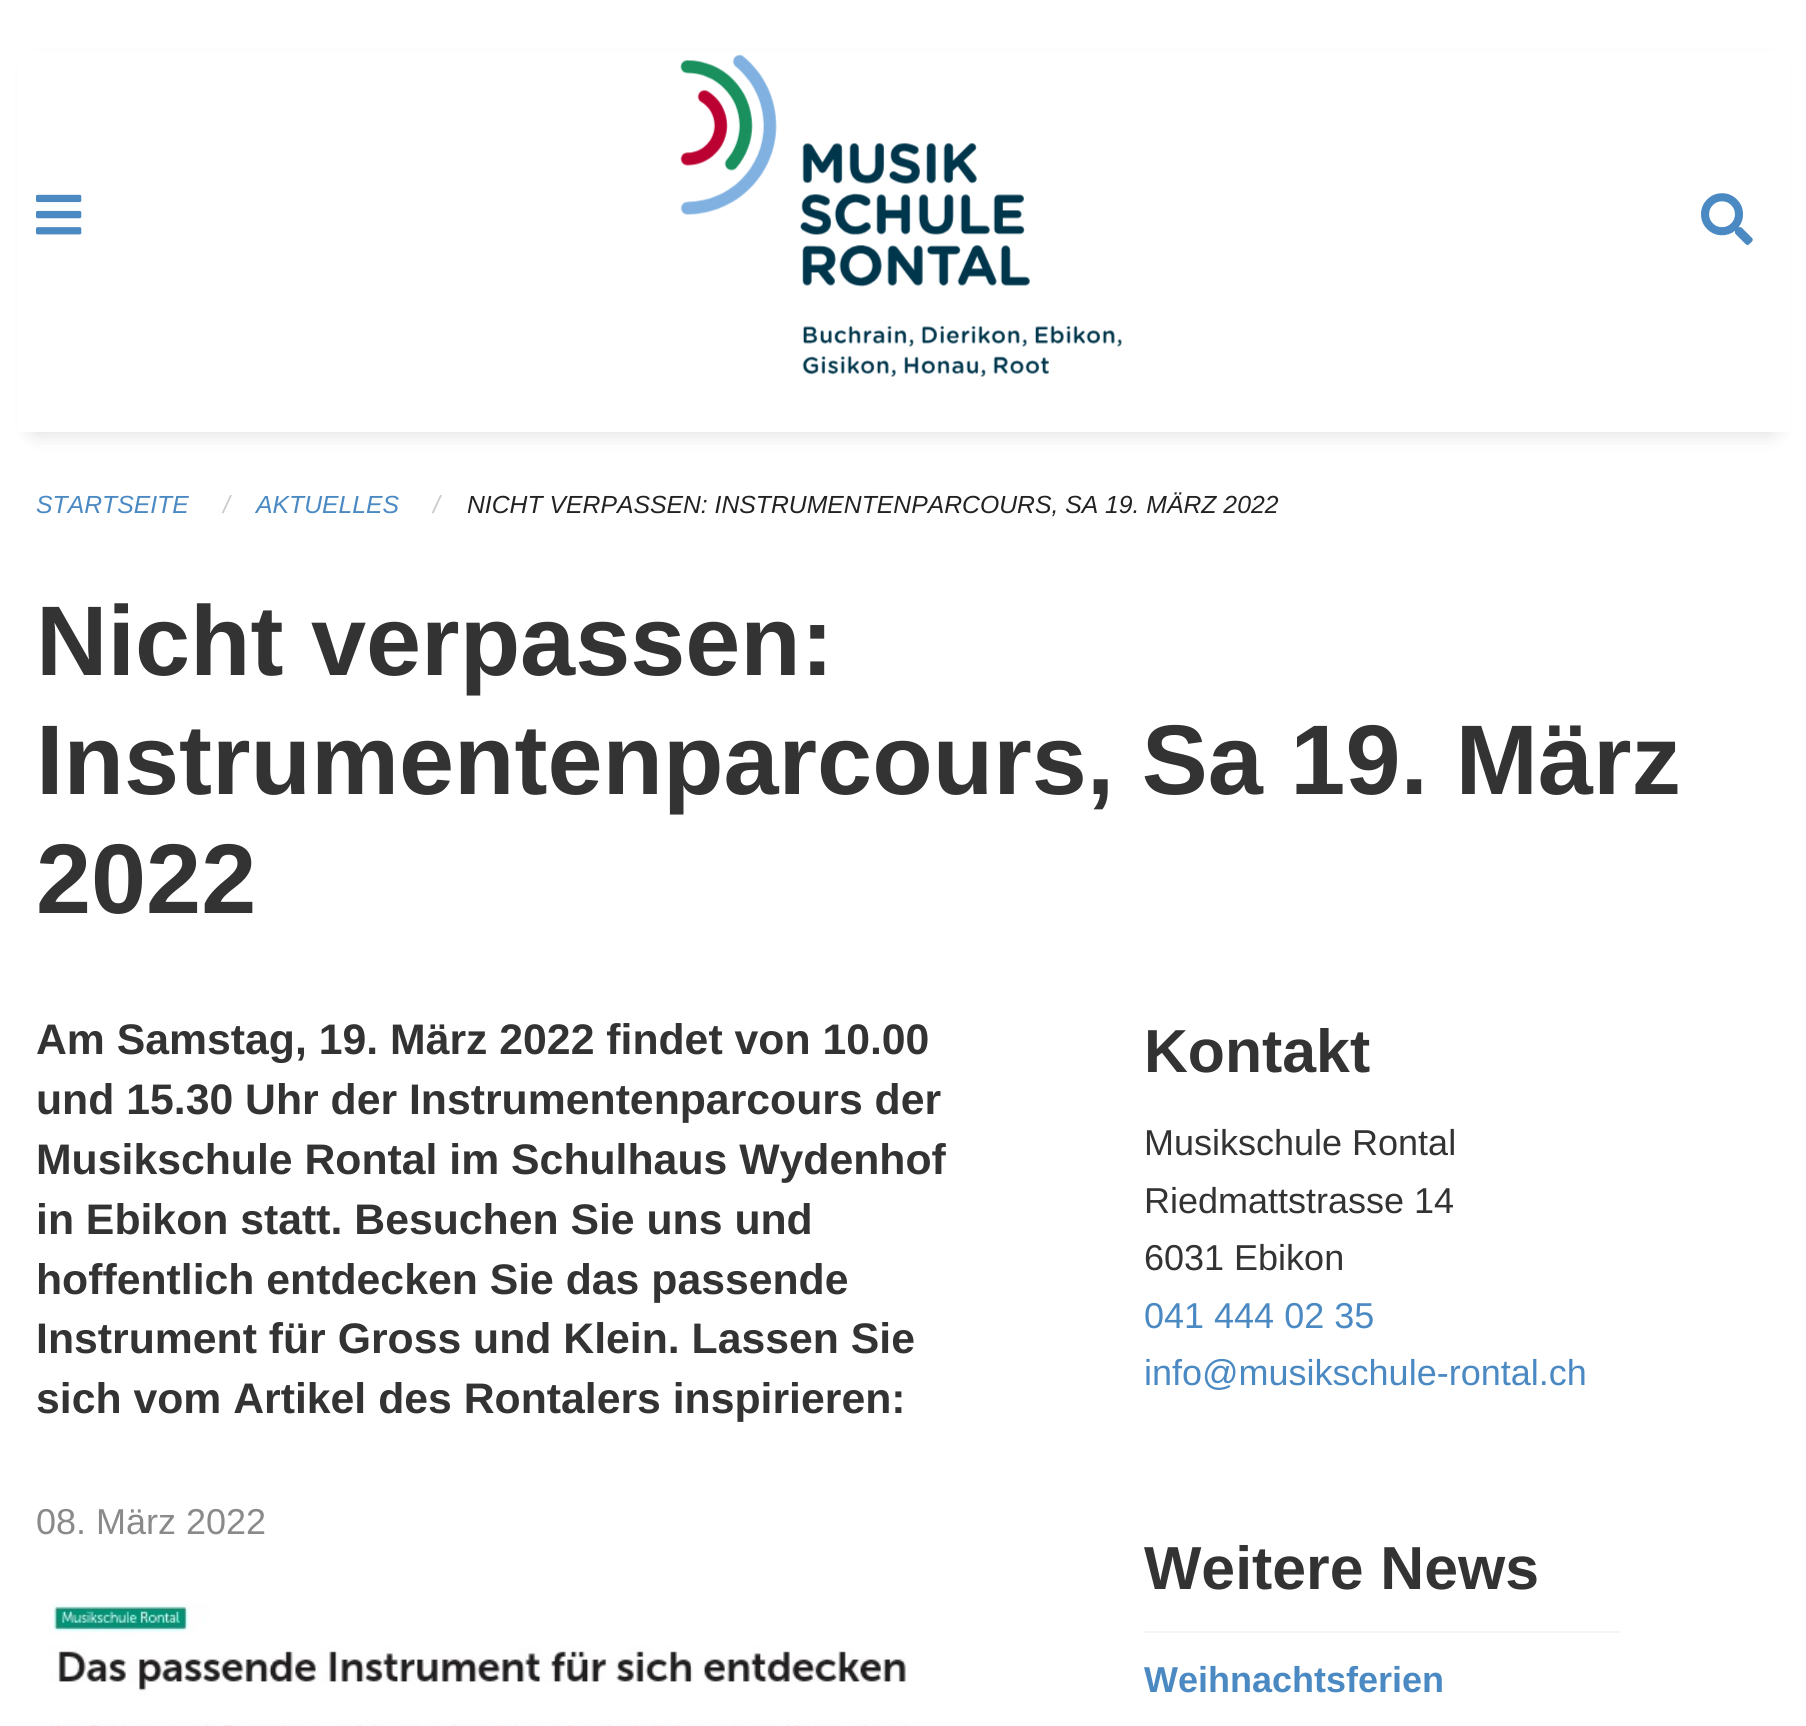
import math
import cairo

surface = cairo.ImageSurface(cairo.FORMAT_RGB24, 1806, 1726)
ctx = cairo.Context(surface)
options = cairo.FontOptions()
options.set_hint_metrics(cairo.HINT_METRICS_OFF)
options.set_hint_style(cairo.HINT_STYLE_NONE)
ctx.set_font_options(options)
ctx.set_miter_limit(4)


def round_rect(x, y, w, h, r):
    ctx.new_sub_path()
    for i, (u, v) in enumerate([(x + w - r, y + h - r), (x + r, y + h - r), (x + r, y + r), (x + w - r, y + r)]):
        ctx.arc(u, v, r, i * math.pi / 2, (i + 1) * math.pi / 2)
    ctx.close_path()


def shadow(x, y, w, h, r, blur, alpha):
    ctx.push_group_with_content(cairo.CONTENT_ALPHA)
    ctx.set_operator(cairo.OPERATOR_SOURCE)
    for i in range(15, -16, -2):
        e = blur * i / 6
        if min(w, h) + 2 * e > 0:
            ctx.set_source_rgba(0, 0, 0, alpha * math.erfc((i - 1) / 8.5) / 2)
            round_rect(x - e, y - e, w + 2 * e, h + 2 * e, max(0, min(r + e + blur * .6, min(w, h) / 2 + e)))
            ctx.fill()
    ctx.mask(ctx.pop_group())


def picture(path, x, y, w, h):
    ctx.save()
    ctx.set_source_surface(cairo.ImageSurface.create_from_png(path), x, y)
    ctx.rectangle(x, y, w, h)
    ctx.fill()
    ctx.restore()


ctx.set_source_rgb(1, 1, 1)
ctx.paint()
ctx.set_source_rgb(0, 0, 0)
shadow(34, 68, 1739, 364, 0, 11, 0.15)
ctx.set_source_rgb(1, 1, 1)
ctx.rectangle(18, 52, 1771, 380)
ctx.fill()
picture("img1.png", 36, 194, 46, 41)
picture("img2.png", 680, 54, 442, 323)
picture("img3.png", 1701, 193, 52, 52)
ctx.select_font_face("Liberation Sans", cairo.FONT_SLANT_ITALIC)
ctx.set_font_size(24.75)
ctx.set_source_rgb(0.294, 0.537, 0.765)
ctx.move_to(36, 513)
ctx.show_text("STARTSEITE")
ctx.set_source_rgb(0.792, 0.792, 0.792)
ctx.move_to(223, 513)
ctx.show_text("/")
ctx.set_source_rgb(0.294, 0.537, 0.765)
ctx.move_to(256, 513)
ctx.show_text("AKTUELLES")
ctx.set_source_rgb(0.792, 0.792, 0.792)
ctx.move_to(433, 513)
ctx.show_text("/")
ctx.set_source_rgb(0.133, 0.133, 0.133)
ctx.move_to(467, 513)
ctx.show_text("NICHT VERPASSEN: INSTRUMENTENPARCOURS, SA 19. MÄRZ 2022")
ctx.select_font_face("Liberation Sans", cairo.FONT_SLANT_NORMAL, cairo.FONT_WEIGHT_BOLD)
ctx.set_font_size(99)
ctx.set_source_rgb(0.2, 0.2, 0.2)
ctx.move_to(36, 675)
ctx.show_text("Nicht verpassen:")
ctx.move_to(36, 794)
ctx.show_text("Instrumentenparcours, Sa 19. März")
ctx.move_to(36, 913)
ctx.show_text("2022")
ctx.set_font_size(42.75)
ctx.move_to(36, 1054)
ctx.show_text("Am Samstag, 19. März 2022 findet von 10.00")
ctx.move_to(36, 1114)
ctx.show_text("und 15.30 Uhr der Instrumentenparcours der")
ctx.move_to(36, 1174)
ctx.show_text("Musikschule Rontal im Schulhaus Wydenhof")
ctx.move_to(36, 1234)
ctx.show_text("in Ebikon statt. Besuchen Sie uns und")
ctx.move_to(36, 1294)
ctx.show_text("hoffentlich entdecken Sie das passende")
ctx.move_to(36, 1353)
ctx.show_text("Instrument für Gross und Klein. Lassen Sie")
ctx.move_to(36, 1413)
ctx.show_text("sich vom Artikel des Rontalers inspirieren:")
ctx.select_font_face("Liberation Sans")
ctx.set_font_size(36)
ctx.set_source_rgb(0.541, 0.541, 0.541)
ctx.move_to(36, 1534)
ctx.show_text("08. März 2022")
picture("img4.png", 49, 1603, 857, 123)
ctx.select_font_face("Liberation Sans", cairo.FONT_SLANT_NORMAL, cairo.FONT_WEIGHT_BOLD)
ctx.set_font_size(60.75)
ctx.set_source_rgb(0.2, 0.2, 0.2)
ctx.move_to(1144, 1072)
ctx.show_text("Kontakt")
ctx.select_font_face("Liberation Sans")
ctx.set_font_size(36)
ctx.move_to(1144, 1155)
ctx.show_text("Musikschule Rontal")
ctx.move_to(1144, 1213)
ctx.show_text("Riedmattstrasse 14")
ctx.move_to(1144, 1270)
ctx.show_text("6031 Ebikon")
ctx.set_source_rgb(0.294, 0.537, 0.765)
ctx.move_to(1144, 1328)
ctx.show_text("041 444 02 35")
ctx.move_to(1144, 1385)
ctx.show_text("info@musikschule-rontal.ch")
ctx.select_font_face("Liberation Sans", cairo.FONT_SLANT_NORMAL, cairo.FONT_WEIGHT_BOLD)
ctx.set_font_size(60.75)
ctx.set_source_rgb(0.2, 0.2, 0.2)
ctx.move_to(1144, 1589)
ctx.show_text("Weitere News")
ctx.set_source_rgb(0.961, 0.961, 0.961)
ctx.rectangle(1143, 1631, 477, 2)
ctx.fill()
ctx.set_font_size(36)
ctx.set_source_rgb(0.294, 0.537, 0.765)
ctx.move_to(1144, 1692)
ctx.show_text("Weihnachtsferien")
surface.write_to_png("page.png")
